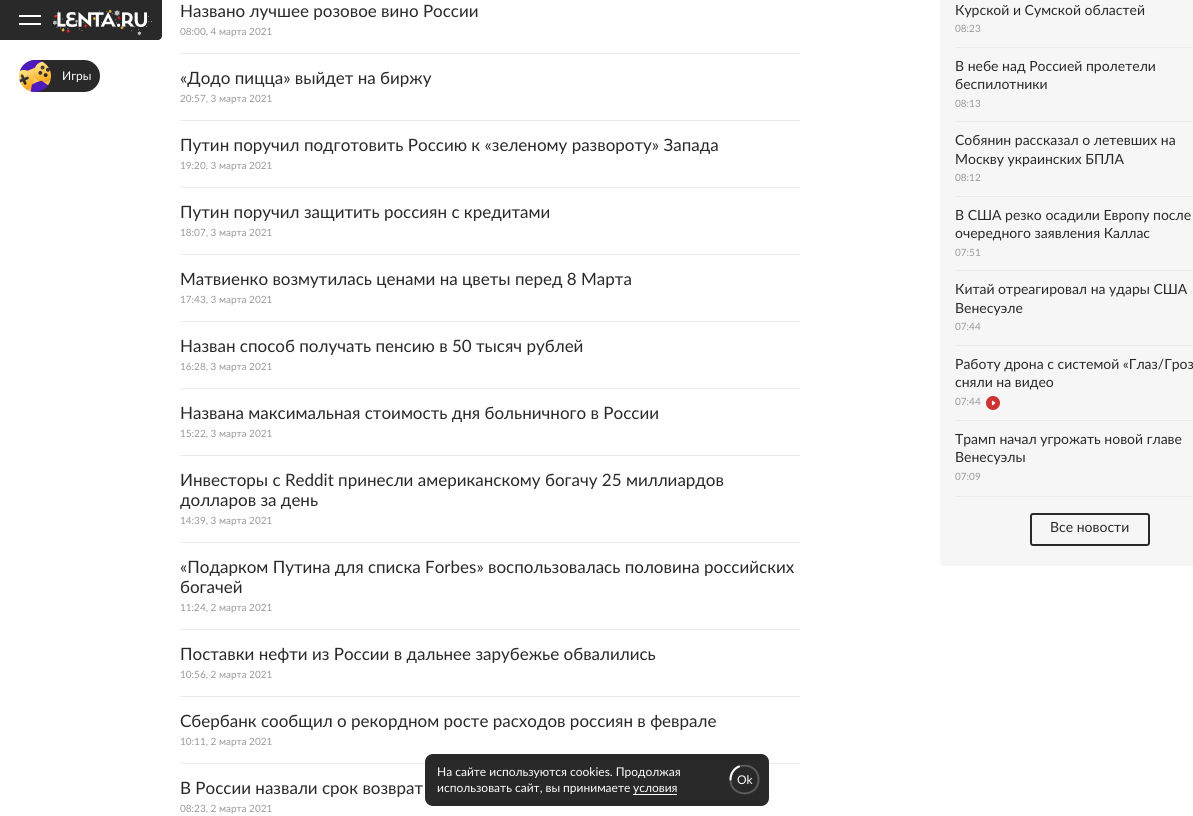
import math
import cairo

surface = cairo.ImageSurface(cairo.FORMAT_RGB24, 1193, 816)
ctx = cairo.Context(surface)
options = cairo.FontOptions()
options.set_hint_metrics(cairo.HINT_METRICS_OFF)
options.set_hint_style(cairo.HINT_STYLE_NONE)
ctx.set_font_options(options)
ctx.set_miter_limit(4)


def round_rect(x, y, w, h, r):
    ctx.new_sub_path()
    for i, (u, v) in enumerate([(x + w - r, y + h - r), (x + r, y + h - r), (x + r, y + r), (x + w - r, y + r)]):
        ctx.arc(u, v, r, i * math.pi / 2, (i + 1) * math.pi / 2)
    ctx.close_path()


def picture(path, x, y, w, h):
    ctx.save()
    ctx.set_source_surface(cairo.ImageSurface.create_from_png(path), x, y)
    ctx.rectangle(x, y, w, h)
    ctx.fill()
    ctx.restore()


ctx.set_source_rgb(1, 1, 1)
ctx.paint()
ctx.set_source_rgb(0.161, 0.161, 0.161)
ctx.new_path()
ctx.move_to(0, 0)
ctx.line_to(162, 0)
ctx.line_to(162, 36)
ctx.curve_to(162, 38, 160, 40, 158, 40)
ctx.line_to(0, 40)
ctx.close_path()
ctx.fill()
ctx.set_source_rgb(1, 1, 1)
ctx.rectangle(19, 15, 22, 2)
ctx.fill()
ctx.rectangle(19, 23, 22, 2)
ctx.fill()
picture("img2.png", 57, 12, 90, 15)
picture("img1.png", 53, 9, 99, 27)
ctx.set_source_rgb(0.161, 0.161, 0.161)
round_rect(20, 60, 80, 32, 16)
ctx.fill()
picture("img3.png", 19, 60, 32, 32)
ctx.select_font_face("Lato")
ctx.set_font_size(12)
ctx.set_source_rgb(1, 1, 1)
ctx.move_to(62, 80)
ctx.show_text("Игры")
ctx.set_font_size(17)
ctx.set_source_rgb(0.161, 0.161, 0.161)
ctx.move_to(180, 17)
ctx.show_text("Названо лучшее розовое вино России")
ctx.set_font_size(10)
ctx.set_source_rgb(0.6, 0.6, 0.6)
ctx.move_to(180, 35)
ctx.show_text("08:00, 4 марта 2021")
ctx.set_source_rgb(0.918, 0.918, 0.918)
ctx.rectangle(180, 53, 620, 1)
ctx.fill()
ctx.set_font_size(17)
ctx.set_source_rgb(0.161, 0.161, 0.161)
ctx.move_to(180, 84)
ctx.show_text("«Додо пицца» выйдет на биржу")
ctx.set_font_size(10)
ctx.set_source_rgb(0.6, 0.6, 0.6)
ctx.move_to(180, 102)
ctx.show_text("20:57, 3 марта 2021")
ctx.set_source_rgb(0.918, 0.918, 0.918)
ctx.rectangle(180, 120, 620, 1)
ctx.fill()
ctx.set_font_size(17)
ctx.set_source_rgb(0.161, 0.161, 0.161)
ctx.move_to(180, 151)
ctx.show_text("Путин поручил подготовить Россию к «зеленому развороту» Запада")
ctx.set_font_size(10)
ctx.set_source_rgb(0.6, 0.6, 0.6)
ctx.move_to(180, 169)
ctx.show_text("19:20, 3 марта 2021")
ctx.set_source_rgb(0.918, 0.918, 0.918)
ctx.rectangle(180, 187, 620, 1)
ctx.fill()
ctx.set_font_size(17)
ctx.set_source_rgb(0.161, 0.161, 0.161)
ctx.move_to(180, 218)
ctx.show_text("Путин поручил защитить россиян с кредитами")
ctx.set_font_size(10)
ctx.set_source_rgb(0.6, 0.6, 0.6)
ctx.move_to(180, 236)
ctx.show_text("18:07, 3 марта 2021")
ctx.set_source_rgb(0.918, 0.918, 0.918)
ctx.rectangle(180, 254, 620, 1)
ctx.fill()
ctx.set_font_size(17)
ctx.set_source_rgb(0.161, 0.161, 0.161)
ctx.move_to(180, 285)
ctx.show_text("Матвиенко возмутилась ценами на цветы перед 8 Марта")
ctx.set_font_size(10)
ctx.set_source_rgb(0.6, 0.6, 0.6)
ctx.move_to(180, 303)
ctx.show_text("17:43, 3 марта 2021")
ctx.set_source_rgb(0.918, 0.918, 0.918)
ctx.rectangle(180, 321, 620, 1)
ctx.fill()
ctx.set_font_size(17)
ctx.set_source_rgb(0.161, 0.161, 0.161)
ctx.move_to(180, 352)
ctx.show_text("Назван способ получать пенсию в 50 тысяч рублей")
ctx.set_font_size(10)
ctx.set_source_rgb(0.6, 0.6, 0.6)
ctx.move_to(180, 370)
ctx.show_text("16:28, 3 марта 2021")
ctx.set_source_rgb(0.918, 0.918, 0.918)
ctx.rectangle(180, 388, 620, 1)
ctx.fill()
ctx.set_font_size(17)
ctx.set_source_rgb(0.161, 0.161, 0.161)
ctx.move_to(180, 419)
ctx.show_text("Названа максимальная стоимость дня больничного в России")
ctx.set_font_size(10)
ctx.set_source_rgb(0.6, 0.6, 0.6)
ctx.move_to(180, 437)
ctx.show_text("15:22, 3 марта 2021")
ctx.set_source_rgb(0.918, 0.918, 0.918)
ctx.rectangle(180, 455, 620, 1)
ctx.fill()
ctx.set_font_size(17)
ctx.set_source_rgb(0.161, 0.161, 0.161)
ctx.move_to(180, 486)
ctx.show_text("Инвесторы с Reddit принесли американскому богачу 25 миллиардов")
ctx.move_to(180, 506)
ctx.show_text("долларов за день")
ctx.set_font_size(10)
ctx.set_source_rgb(0.6, 0.6, 0.6)
ctx.move_to(180, 524)
ctx.show_text("14:39, 3 марта 2021")
ctx.set_source_rgb(0.918, 0.918, 0.918)
ctx.rectangle(180, 542, 620, 1)
ctx.fill()
ctx.set_font_size(17)
ctx.set_source_rgb(0.161, 0.161, 0.161)
ctx.move_to(180, 573)
ctx.show_text("«Подарком Путина для списка Forbes» воспользовалась половина российских")
ctx.move_to(180, 593)
ctx.show_text("богачей")
ctx.set_font_size(10)
ctx.set_source_rgb(0.6, 0.6, 0.6)
ctx.move_to(180, 611)
ctx.show_text("11:24, 2 марта 2021")
ctx.set_source_rgb(0.918, 0.918, 0.918)
ctx.rectangle(180, 629, 620, 1)
ctx.fill()
ctx.set_font_size(17)
ctx.set_source_rgb(0.161, 0.161, 0.161)
ctx.move_to(180, 660)
ctx.show_text("Поставки нефти из России в дальнее зарубежье обвалились")
ctx.set_font_size(10)
ctx.set_source_rgb(0.6, 0.6, 0.6)
ctx.move_to(180, 678)
ctx.show_text("10:56, 2 марта 2021")
ctx.set_source_rgb(0.918, 0.918, 0.918)
ctx.rectangle(180, 696, 620, 1)
ctx.fill()
ctx.set_font_size(17)
ctx.set_source_rgb(0.161, 0.161, 0.161)
ctx.move_to(180, 727)
ctx.show_text("Сбербанк сообщил о рекордном росте расходов россиян в феврале")
ctx.set_font_size(10)
ctx.set_source_rgb(0.6, 0.6, 0.6)
ctx.move_to(180, 745)
ctx.show_text("10:11, 2 марта 2021")
ctx.set_source_rgb(0.918, 0.918, 0.918)
ctx.rectangle(180, 763, 620, 1)
ctx.fill()
ctx.set_font_size(17)
ctx.set_source_rgb(0.161, 0.161, 0.161)
ctx.move_to(180, 794)
ctx.show_text("В России назвали срок возврат")
ctx.set_font_size(10)
ctx.set_source_rgb(0.6, 0.6, 0.6)
ctx.move_to(180, 812)
ctx.show_text("08:23, 2 марта 2021")
ctx.set_source_rgb(0.961, 0.961, 0.961)
round_rect(940, -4, 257, 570, 4)
ctx.fill()
ctx.set_source_rgb(0.918, 0.918, 0.918)
ctx.rectangle(955, 496, 238, 1)
ctx.fill()
ctx.rectangle(955, 47, 238, 1)
ctx.fill()
ctx.set_font_size(14)
ctx.set_source_rgb(0.161, 0.161, 0.161)
ctx.move_to(955, 15)
ctx.show_text("Курской и Сумской областей")
ctx.set_font_size(10)
ctx.set_source_rgb(0.6, 0.6, 0.6)
ctx.move_to(955, 32)
ctx.show_text("08:23")
ctx.set_source_rgb(0.918, 0.918, 0.918)
ctx.rectangle(955, 121, 238, 1)
ctx.fill()
ctx.set_font_size(14)
ctx.set_source_rgb(0.161, 0.161, 0.161)
ctx.move_to(955, 71)
ctx.show_text("В небе над Россией пролетели")
ctx.move_to(955, 89)
ctx.show_text("беспилотники")
ctx.set_font_size(10)
ctx.set_source_rgb(0.6, 0.6, 0.6)
ctx.move_to(955, 107)
ctx.show_text("08:13")
ctx.set_source_rgb(0.918, 0.918, 0.918)
ctx.rectangle(955, 196, 238, 1)
ctx.fill()
ctx.set_font_size(14)
ctx.set_source_rgb(0.161, 0.161, 0.161)
ctx.move_to(955, 145)
ctx.show_text("Собянин рассказал о летевших на")
ctx.move_to(955, 164)
ctx.show_text("Москву украинских БПЛА")
ctx.set_font_size(10)
ctx.set_source_rgb(0.6, 0.6, 0.6)
ctx.move_to(955, 181)
ctx.show_text("08:12")
ctx.set_source_rgb(0.918, 0.918, 0.918)
ctx.rectangle(955, 270, 238, 1)
ctx.fill()
ctx.set_font_size(14)
ctx.set_source_rgb(0.161, 0.161, 0.161)
ctx.move_to(955, 220)
ctx.show_text("В США резко осадили Европу после")
ctx.move_to(955, 238)
ctx.show_text("очередного заявления Каллас")
ctx.set_font_size(10)
ctx.set_source_rgb(0.6, 0.6, 0.6)
ctx.move_to(955, 256)
ctx.show_text("07:51")
ctx.set_source_rgb(0.918, 0.918, 0.918)
ctx.rectangle(955, 345, 238, 1)
ctx.fill()
ctx.set_font_size(14)
ctx.set_source_rgb(0.161, 0.161, 0.161)
ctx.move_to(955, 294)
ctx.show_text("Китай отреагировал на удары США")
ctx.move_to(955, 313)
ctx.show_text("Венесуэле")
ctx.set_font_size(10)
ctx.set_source_rgb(0.6, 0.6, 0.6)
ctx.move_to(955, 330)
ctx.show_text("07:44")
ctx.set_source_rgb(0.918, 0.918, 0.918)
ctx.rectangle(955, 420, 238, 1)
ctx.fill()
ctx.set_font_size(14)
ctx.set_source_rgb(0.161, 0.161, 0.161)
ctx.move_to(955, 369)
ctx.show_text("Работу дрона с системой «Глаз/Гроз")
ctx.move_to(955, 387)
ctx.show_text("сняли на видео")
ctx.set_font_size(10)
ctx.set_source_rgb(0.6, 0.6, 0.6)
ctx.move_to(955, 405)
ctx.show_text("07:44")
picture("img4.png", 986, 396, 14, 14)
ctx.set_font_size(14)
ctx.set_source_rgb(0.161, 0.161, 0.161)
ctx.move_to(955, 444)
ctx.show_text("Трамп начал угрожать новой главе")
ctx.move_to(955, 462)
ctx.show_text("Венесуэлы")
ctx.set_font_size(10)
ctx.set_source_rgb(0.6, 0.6, 0.6)
ctx.move_to(955, 480)
ctx.show_text("07:09")
round_rect(1031, 514, 118, 31, 2)
ctx.set_source_rgb(0.161, 0.161, 0.161)
ctx.stroke()
ctx.set_font_size(14)
ctx.move_to(1050, 532)
ctx.show_text("Все новости")
round_rect(425, 754, 344, 52, 8)
ctx.fill()
ctx.set_font_size(12)
ctx.set_source_rgb(1, 1, 1)
ctx.move_to(437, 776)
ctx.show_text("На сайте используются cookies. Продолжая")
ctx.move_to(437, 792)
ctx.show_text("использовать сайт, вы принимаете")
ctx.rectangle(633, 794, 44, 1)
ctx.fill()
ctx.move_to(633, 792)
ctx.show_text("условия")
ctx.move_to(737, 784)
ctx.show_text("Ok")
ctx.new_path()
ctx.move_to(730.5, 779.5)
ctx.curve_to(730.5, 761, 758.5, 761, 758.5, 779.5)
ctx.curve_to(758.5, 798, 730.5, 798, 730.5, 779.5)
ctx.close_path()
ctx.set_source_rgb(0.349, 0.349, 0.349)
ctx.set_line_cap(cairo.LINE_CAP_ROUND)
ctx.stroke()
ctx.new_path()
ctx.move_to(730.5, 779.5)
ctx.curve_to(730.5, 773.5, 734, 768.5, 739, 766.5)
ctx.set_source_rgb(1, 1, 1)
ctx.stroke()
surface.write_to_png("page.png")
